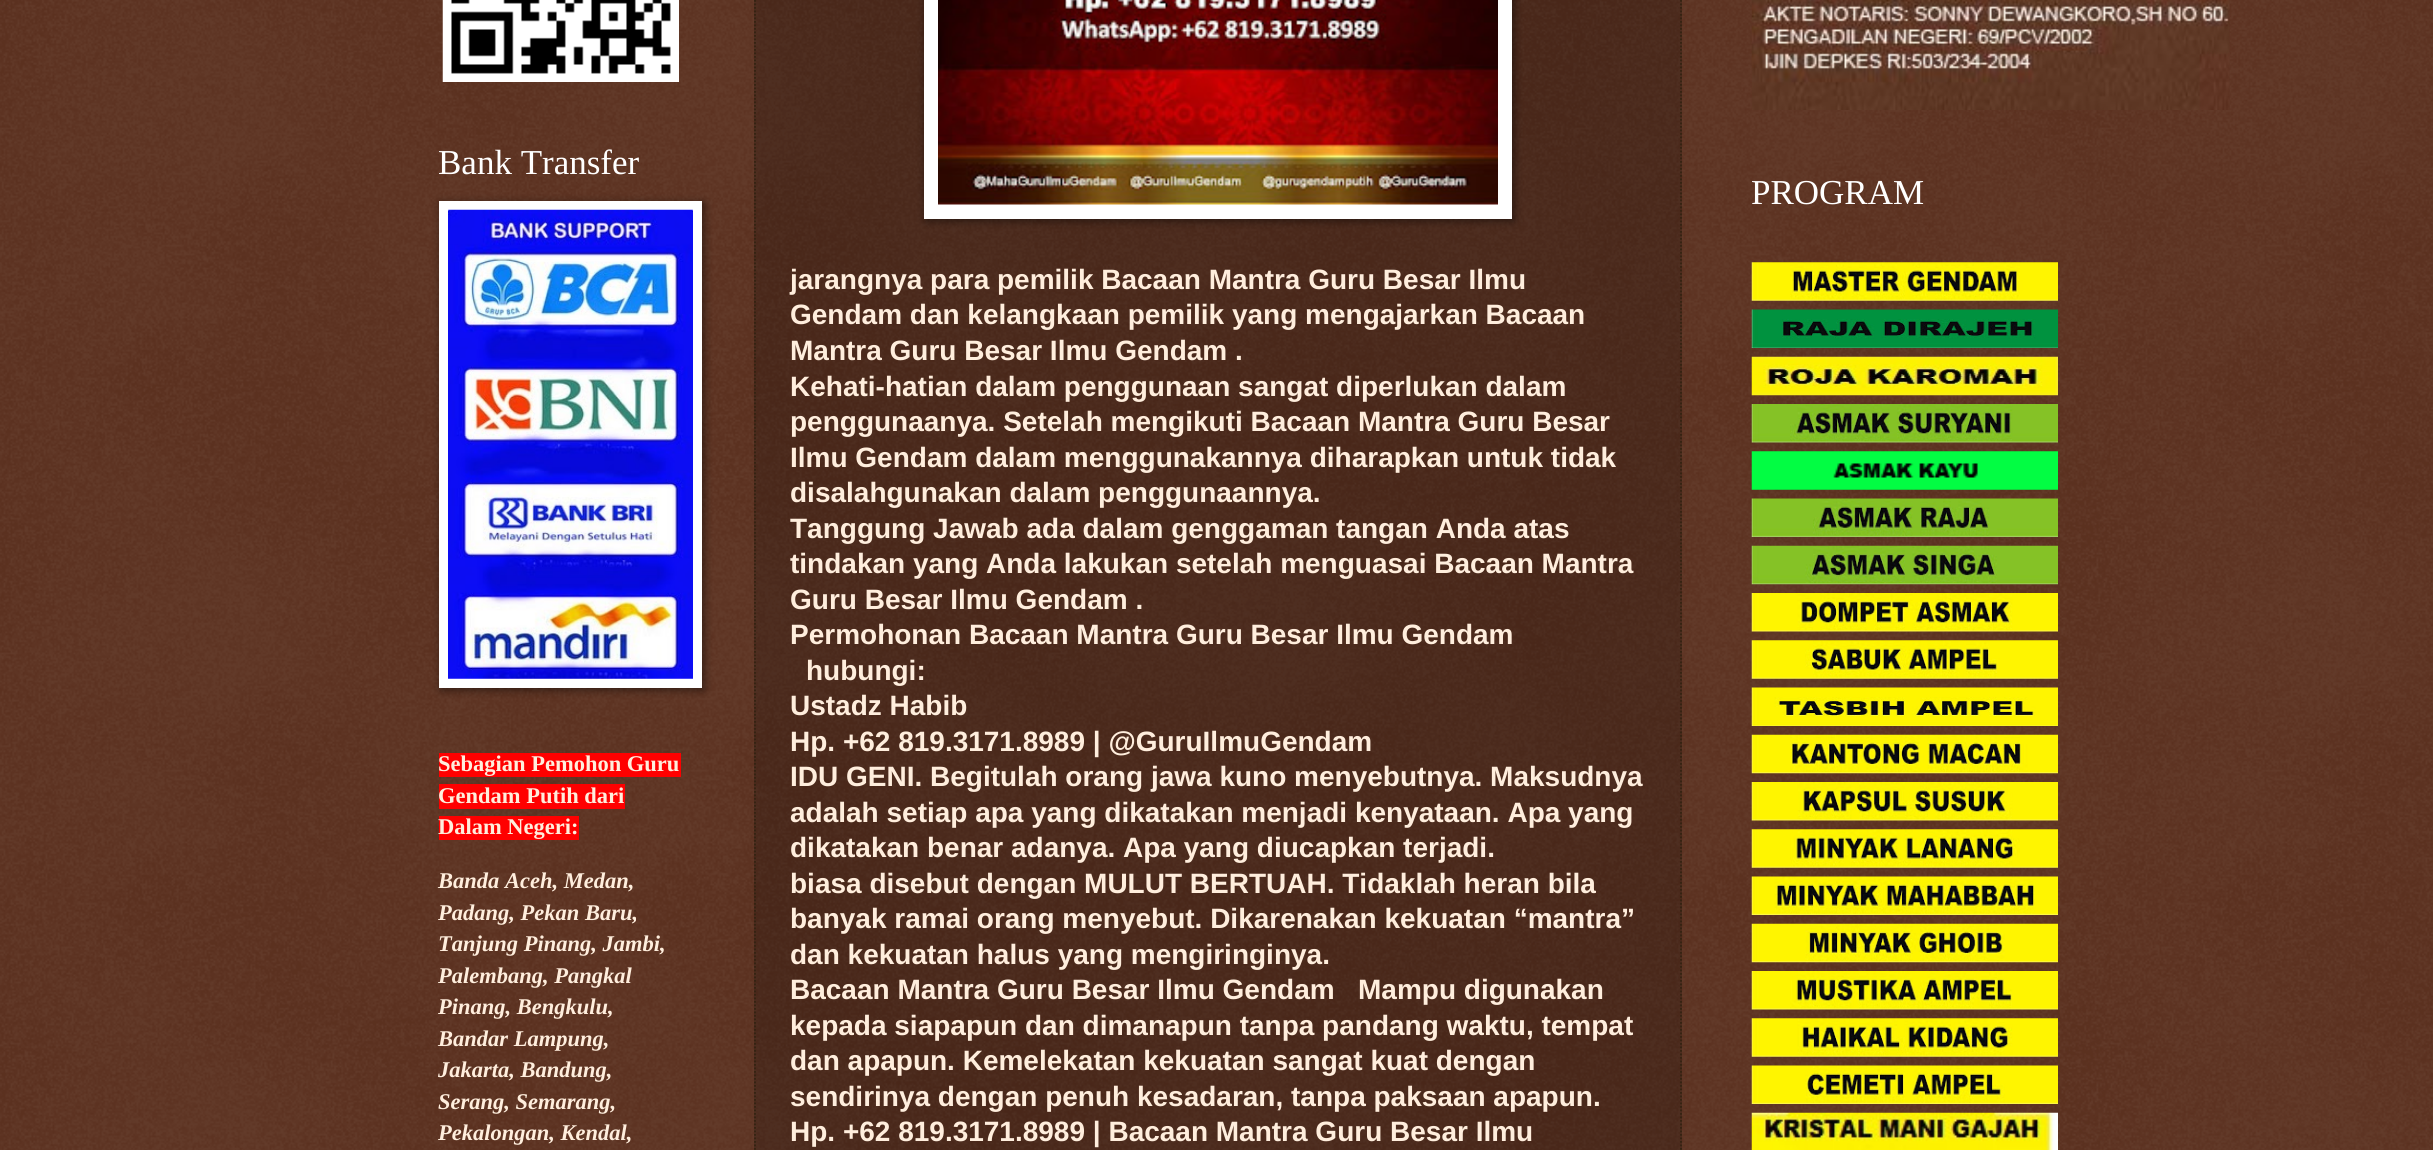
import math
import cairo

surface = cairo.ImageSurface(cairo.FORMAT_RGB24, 2433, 1150)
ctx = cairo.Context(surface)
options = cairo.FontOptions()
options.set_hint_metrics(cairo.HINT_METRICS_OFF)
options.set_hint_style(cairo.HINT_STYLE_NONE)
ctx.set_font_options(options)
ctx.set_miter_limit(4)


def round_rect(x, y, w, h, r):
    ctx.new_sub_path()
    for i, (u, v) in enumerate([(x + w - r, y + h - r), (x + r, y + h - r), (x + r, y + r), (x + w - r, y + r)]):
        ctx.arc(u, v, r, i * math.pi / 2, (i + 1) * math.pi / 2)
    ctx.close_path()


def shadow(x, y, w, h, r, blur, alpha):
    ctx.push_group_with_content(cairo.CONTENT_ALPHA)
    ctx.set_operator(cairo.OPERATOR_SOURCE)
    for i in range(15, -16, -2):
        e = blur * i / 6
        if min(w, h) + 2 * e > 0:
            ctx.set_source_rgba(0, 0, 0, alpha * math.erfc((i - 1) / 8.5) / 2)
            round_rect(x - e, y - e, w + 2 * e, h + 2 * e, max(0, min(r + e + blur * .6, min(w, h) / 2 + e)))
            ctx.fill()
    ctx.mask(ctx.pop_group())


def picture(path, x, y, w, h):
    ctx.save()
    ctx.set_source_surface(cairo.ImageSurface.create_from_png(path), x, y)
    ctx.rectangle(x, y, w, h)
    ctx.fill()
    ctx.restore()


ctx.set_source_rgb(0.267, 0.082, 0)
ctx.paint()
picture("img1.png", 0, 0, 2433, 1150)
picture("img2.png", 442, 0, 237, 82)
ctx.select_font_face("Liberation Serif")
ctx.set_font_size(35)
ctx.set_source_rgb(1, 1, 1)
ctx.move_to(438, 174)
ctx.show_text("Bank Transfer")
ctx.set_source_rgb(0, 0, 0)
shadow(441, 203, 263, 487, 0, 4.5, 0.5)
ctx.set_source_rgb(1, 1, 1)
ctx.rectangle(439, 201, 263, 487)
ctx.fill()
picture("img3.png", 448, 209, 245, 470)
ctx.set_source_rgb(1, 0, 0)
ctx.rectangle(439, 753, 242, 24)
ctx.fill()
ctx.select_font_face("Liberation Serif", cairo.FONT_SLANT_NORMAL, cairo.FONT_WEIGHT_BOLD)
ctx.set_font_size(22.5)
ctx.set_source_rgb(1, 0.933, 0.867)
ctx.move_to(438, 771)
ctx.show_text("Sebagian Pemohon Guru")
ctx.set_source_rgb(1, 0, 0)
ctx.rectangle(439, 784, 186, 25)
ctx.fill()
ctx.set_source_rgb(1, 0.933, 0.867)
ctx.move_to(438, 803)
ctx.show_text("Gendam Putih dari")
ctx.set_source_rgb(1, 0, 0)
ctx.rectangle(439, 816, 140, 24)
ctx.fill()
ctx.set_source_rgb(1, 0.933, 0.867)
ctx.move_to(438, 834)
ctx.show_text("Dalam Negeri:")
ctx.select_font_face("Liberation Serif", cairo.FONT_SLANT_ITALIC, cairo.FONT_WEIGHT_BOLD)
ctx.move_to(438, 888)
ctx.show_text("Banda Aceh, Medan,")
ctx.move_to(438, 920)
ctx.show_text("Padang, Pekan Baru,")
ctx.move_to(438, 951)
ctx.show_text("Tanjung Pinang, Jambi,")
ctx.move_to(438, 983)
ctx.show_text("Palembang, Pangkal")
ctx.move_to(438, 1014)
ctx.show_text("Pinang, Bengkulu,")
ctx.move_to(438, 1046)
ctx.show_text("Bandar Lampung,")
ctx.move_to(438, 1077)
ctx.show_text("Jakarta, Bandung,")
ctx.move_to(438, 1109)
ctx.show_text("Serang, Semarang,")
ctx.move_to(438, 1140)
ctx.show_text("Pekalongan, Kendal,")
picture("img4.png", 1751, 0, 479, 110)
ctx.select_font_face("Liberation Serif")
ctx.set_font_size(35)
ctx.set_source_rgb(1, 1, 1)
ctx.move_to(1751, 204)
ctx.show_text("PROGRAM")
picture("img5.png", 1751, 262, 307, 39)
picture("img6.png", 1751, 309, 307, 39)
picture("img7.png", 1751, 356, 307, 40)
picture("img8.png", 1751, 404, 307, 39)
picture("img9.png", 1751, 451, 307, 39)
picture("img10.png", 1751, 498, 307, 39)
picture("img11.png", 1751, 545, 307, 40)
picture("img12.png", 1751, 593, 307, 39)
picture("img13.png", 1751, 640, 307, 39)
picture("img14.png", 1751, 687, 307, 39)
picture("img15.png", 1751, 734, 307, 40)
picture("img16.png", 1751, 782, 307, 39)
picture("img17.png", 1751, 829, 307, 39)
picture("img18.png", 1751, 876, 307, 39)
picture("img19.png", 1751, 923, 307, 40)
picture("img20.png", 1751, 971, 307, 39)
picture("img21.png", 1751, 1018, 307, 39)
picture("img22.png", 1751, 1065, 307, 39)
picture("img23.png", 1751, 1112, 307, 38)
ctx.set_source_rgba(0, 0, 0, 0.2)
ctx.rectangle(754, 0, 928, 1150)
ctx.fill()
ctx.new_path()
ctx.move_to(1681, -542.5)
ctx.line_to(1681, 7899.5)
ctx.set_source_rgb(0.2, 0.133, 0.067)
ctx.set_line_width(1.8)
ctx.set_dash([1.75, 1.75])
ctx.stroke()
ctx.new_path()
ctx.move_to(755, -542.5)
ctx.line_to(755, 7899.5)
ctx.stroke()
ctx.set_source_rgb(0, 0, 0)
shadow(926, -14, 588, 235, 0, 4.5, 0.5)
ctx.set_source_rgb(1, 1, 1)
ctx.rectangle(924, 0, 588, 219)
ctx.fill()
picture("img24.png", 938, 0, 560, 205)
ctx.select_font_face("Liberation Sans", cairo.FONT_SLANT_NORMAL, cairo.FONT_WEIGHT_BOLD)
ctx.set_font_size(28)
ctx.set_source_rgb(1, 0.933, 0.867)
ctx.move_to(790, 289)
ctx.show_text("jarangnya para pemilik Bacaan Mantra Guru Besar Ilmu")
ctx.move_to(790, 324)
ctx.show_text("Gendam dan kelangkaan pemilik yang mengajarkan Bacaan")
ctx.move_to(790, 360)
ctx.show_text("Mantra Guru Besar Ilmu Gendam .")
ctx.move_to(790, 396)
ctx.show_text("Kehati-hatian dalam penggunaan sangat diperlukan dalam")
ctx.move_to(790, 431)
ctx.show_text("penggunaanya. Setelah mengikuti Bacaan Mantra Guru Besar")
ctx.move_to(790, 467)
ctx.show_text("Ilmu Gendam dalam menggunakannya diharapkan untuk tidak")
ctx.move_to(790, 502)
ctx.show_text("disalahgunakan dalam penggunaannya.")
ctx.move_to(790, 538)
ctx.show_text("Tanggung Jawab ada dalam genggaman tangan Anda atas")
ctx.move_to(790, 573)
ctx.show_text("tindakan yang Anda lakukan setelah menguasai Bacaan Mantra")
ctx.move_to(790, 609)
ctx.show_text("Guru Besar Ilmu Gendam .")
ctx.move_to(790, 644)
ctx.show_text("Permohonan Bacaan Mantra Guru Besar Ilmu Gendam")
ctx.move_to(806, 680)
ctx.show_text("hubungi:")
ctx.move_to(790, 715)
ctx.show_text("Ustadz Habib")
ctx.move_to(790, 751)
ctx.show_text("Hp. +62 819.3171.8989 | @GuruIlmuGendam")
ctx.move_to(790, 786)
ctx.show_text("IDU GENI. Begitulah orang jawa kuno menyebutnya. Maksudnya")
ctx.move_to(790, 822)
ctx.show_text("adalah setiap apa yang dikatakan menjadi kenyataan. Apa yang")
ctx.move_to(790, 857)
ctx.show_text("dikatakan benar adanya. Apa yang diucapkan terjadi.")
ctx.move_to(790, 893)
ctx.show_text("biasa disebut dengan MULUT BERTUAH. Tidaklah heran bila")
ctx.move_to(790, 928)
ctx.show_text("banyak ramai orang menyebut. Dikarenakan kekuatan “mantra”")
ctx.move_to(790, 964)
ctx.show_text("dan kekuatan halus yang mengiringinya.")
ctx.move_to(790, 999)
ctx.show_text("Bacaan Mantra Guru Besar Ilmu Gendam")
ctx.move_to(1358, 999)
ctx.show_text("Mampu digunakan")
ctx.move_to(790, 1035)
ctx.show_text("kepada siapapun dan dimanapun tanpa pandang waktu, tempat")
ctx.move_to(790, 1070)
ctx.show_text("dan apapun. Kemelekatan kekuatan sangat kuat dengan")
ctx.move_to(790, 1106)
ctx.show_text("sendirinya dengan penuh kesadaran, tanpa paksaan apapun.")
ctx.move_to(790, 1141)
ctx.show_text("Hp. +62 819.3171.8989 | Bacaan Mantra Guru Besar Ilmu")
surface.write_to_png("page.png")
